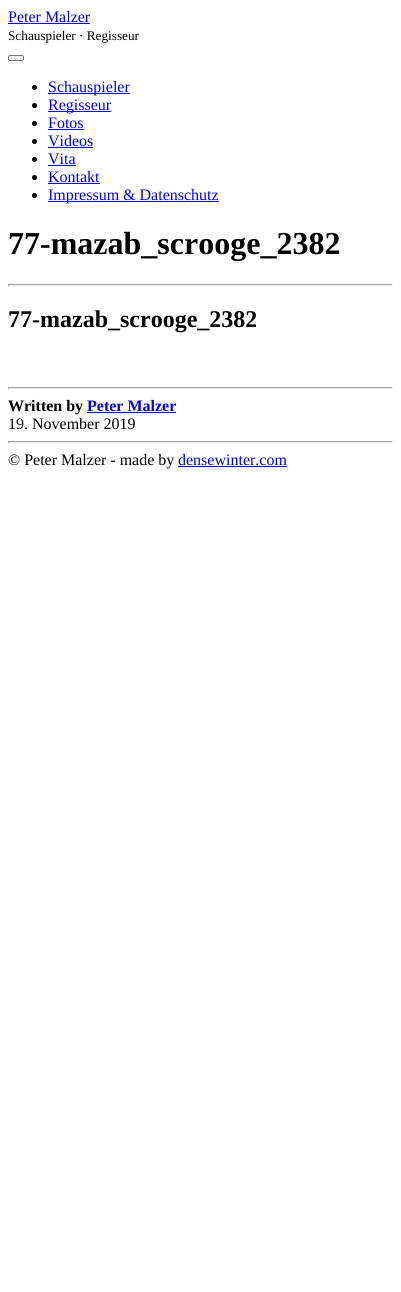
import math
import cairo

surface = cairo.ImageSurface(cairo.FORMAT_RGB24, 401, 1292)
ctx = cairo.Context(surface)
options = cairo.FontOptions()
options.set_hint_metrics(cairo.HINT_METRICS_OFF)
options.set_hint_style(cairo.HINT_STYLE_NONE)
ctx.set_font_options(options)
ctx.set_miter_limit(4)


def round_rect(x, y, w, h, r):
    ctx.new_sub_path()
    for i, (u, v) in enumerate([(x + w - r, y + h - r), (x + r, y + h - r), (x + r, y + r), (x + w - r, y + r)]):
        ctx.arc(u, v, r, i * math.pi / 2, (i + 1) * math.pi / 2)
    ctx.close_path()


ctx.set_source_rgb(1, 1, 1)
ctx.paint()
ctx.select_font_face("Liberation Serif")
ctx.set_font_size(16)
ctx.set_source_rgb(0, 0, 0.933)
ctx.move_to(8, 22)
ctx.show_text("Peter Malzer")
ctx.rectangle(8, 23, 82, 1)
ctx.fill()
ctx.set_font_size(13.25)
ctx.set_source_rgb(0, 0, 0)
ctx.move_to(8, 40)
ctx.show_text("Schauspieler · Regisseur")
ctx.set_source_rgb(0.937, 0.937, 0.937)
round_rect(8.5, 55.5, 15, 5, 1.5)
ctx.fill_preserve()
ctx.set_source_rgb(0.463, 0.463, 0.463)
ctx.set_line_width(1)
ctx.stroke()
ctx.set_source_rgb(0, 0, 0)
ctx.arc(34.5, 87.5, 2.5, 0, 2 * math.pi)
ctx.fill()
ctx.set_source_rgb(0, 0, 0.933)
ctx.rectangle(48, 93, 82, 1)
ctx.fill()
ctx.set_font_size(16)
ctx.move_to(48, 92)
ctx.show_text("Schauspieler")
ctx.set_source_rgb(0, 0, 0)
ctx.new_path()
ctx.arc(34.5, 105.5, 2.5, 0, 2 * math.pi)
ctx.fill()
ctx.set_source_rgb(0, 0, 0.933)
ctx.rectangle(48, 111, 63, 1)
ctx.fill()
ctx.move_to(48, 110)
ctx.show_text("Regisseur")
ctx.set_source_rgb(0, 0, 0)
ctx.new_path()
ctx.arc(34.5, 123.5, 2.5, 0, 2 * math.pi)
ctx.fill()
ctx.set_source_rgb(0, 0, 0.933)
ctx.move_to(48, 128)
ctx.show_text("Fotos")
ctx.rectangle(48, 129, 36, 1)
ctx.fill()
ctx.set_source_rgb(0, 0, 0)
ctx.arc(34.5, 141.5, 2.5, 0, 2 * math.pi)
ctx.fill()
ctx.set_source_rgb(0, 0, 0.933)
ctx.move_to(48, 146)
ctx.show_text("Videos")
ctx.rectangle(48, 147, 45, 1)
ctx.fill()
ctx.set_source_rgb(0, 0, 0)
ctx.arc(34.5, 159.5, 2.5, 0, 2 * math.pi)
ctx.fill()
ctx.set_source_rgb(0, 0, 0.933)
ctx.move_to(48, 164)
ctx.show_text("Vita")
ctx.rectangle(48, 165, 28, 1)
ctx.fill()
ctx.set_source_rgb(0, 0, 0)
ctx.arc(34.5, 177.5, 2.5, 0, 2 * math.pi)
ctx.fill()
ctx.set_source_rgb(0, 0, 0.933)
ctx.move_to(48, 182)
ctx.show_text("Kontakt")
ctx.rectangle(48, 183, 52, 1)
ctx.fill()
ctx.set_source_rgb(0, 0, 0)
ctx.arc(34.5, 195.5, 2.5, 0, 2 * math.pi)
ctx.fill()
ctx.set_source_rgb(0, 0, 0.933)
ctx.rectangle(48, 201, 171, 1)
ctx.fill()
ctx.move_to(48, 200)
ctx.show_text("Impressum & Datenschutz")
ctx.select_font_face("Liberation Serif", cairo.FONT_SLANT_NORMAL, cairo.FONT_WEIGHT_BOLD)
ctx.set_font_size(32)
ctx.set_source_rgb(0, 0, 0)
ctx.move_to(8, 254)
ctx.show_text("77-mazab_scrooge_2382")
ctx.set_source_rgb(0.624, 0.624, 0.624)
ctx.rectangle(8, 284, 385, 1)
ctx.fill()
ctx.set_source_rgb(0.933, 0.933, 0.933)
ctx.rectangle(392, 284, 1, 2)
ctx.fill()
ctx.rectangle(8, 285, 385, 1)
ctx.fill()
ctx.set_source_rgb(0.624, 0.624, 0.624)
ctx.rectangle(8, 284, 1, 2)
ctx.fill()
ctx.set_font_size(24)
ctx.set_source_rgb(0, 0, 0)
ctx.move_to(8, 327)
ctx.show_text("77-mazab_scrooge_2382")
ctx.set_source_rgb(0.624, 0.624, 0.624)
ctx.rectangle(8, 387, 385, 1)
ctx.fill()
ctx.set_source_rgb(0.933, 0.933, 0.933)
ctx.rectangle(392, 387, 1, 2)
ctx.fill()
ctx.rectangle(8, 388, 385, 1)
ctx.fill()
ctx.set_source_rgb(0.624, 0.624, 0.624)
ctx.rectangle(8, 387, 1, 2)
ctx.fill()
ctx.set_font_size(16)
ctx.set_source_rgb(0, 0, 0)
ctx.move_to(8, 411)
ctx.show_text("Written by")
ctx.set_source_rgb(0, 0, 0.933)
ctx.move_to(87, 411)
ctx.show_text("Peter Malzer")
ctx.rectangle(87, 412, 89, 1)
ctx.fill()
ctx.select_font_face("Liberation Serif")
ctx.set_source_rgb(0, 0, 0)
ctx.move_to(8, 429)
ctx.show_text("19. November 2019")
ctx.set_source_rgb(0.624, 0.624, 0.624)
ctx.rectangle(8, 441, 385, 1)
ctx.fill()
ctx.set_source_rgb(0.933, 0.933, 0.933)
ctx.rectangle(392, 441, 1, 2)
ctx.fill()
ctx.rectangle(8, 442, 385, 1)
ctx.fill()
ctx.set_source_rgb(0.624, 0.624, 0.624)
ctx.rectangle(8, 441, 1, 2)
ctx.fill()
ctx.set_source_rgb(0, 0, 0)
ctx.move_to(8, 465)
ctx.show_text("© Peter Malzer - made by")
ctx.set_source_rgb(0, 0, 0.933)
ctx.move_to(178, 465)
ctx.show_text("densewinter.com")
ctx.rectangle(178, 466, 109, 1)
ctx.fill()
surface.write_to_png("page.png")
